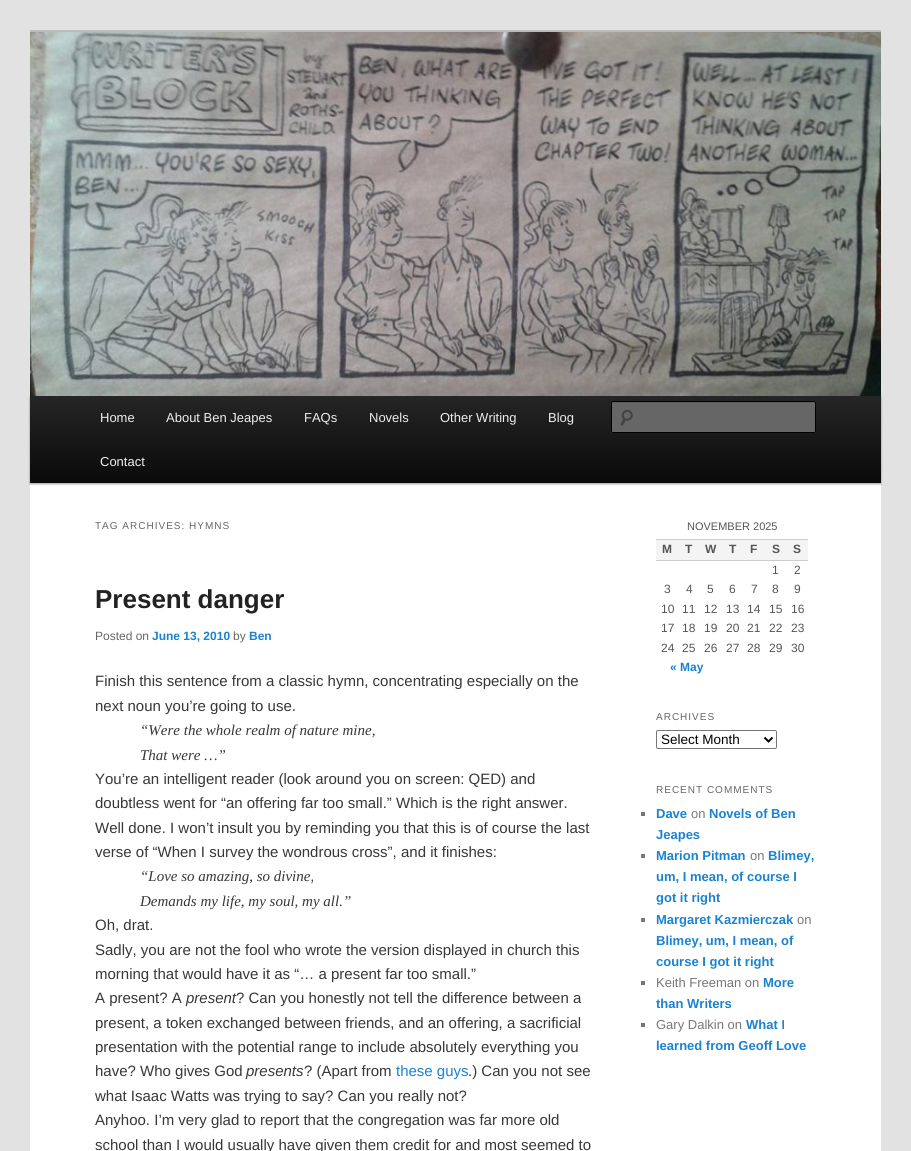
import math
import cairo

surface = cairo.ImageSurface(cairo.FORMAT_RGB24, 911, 1151)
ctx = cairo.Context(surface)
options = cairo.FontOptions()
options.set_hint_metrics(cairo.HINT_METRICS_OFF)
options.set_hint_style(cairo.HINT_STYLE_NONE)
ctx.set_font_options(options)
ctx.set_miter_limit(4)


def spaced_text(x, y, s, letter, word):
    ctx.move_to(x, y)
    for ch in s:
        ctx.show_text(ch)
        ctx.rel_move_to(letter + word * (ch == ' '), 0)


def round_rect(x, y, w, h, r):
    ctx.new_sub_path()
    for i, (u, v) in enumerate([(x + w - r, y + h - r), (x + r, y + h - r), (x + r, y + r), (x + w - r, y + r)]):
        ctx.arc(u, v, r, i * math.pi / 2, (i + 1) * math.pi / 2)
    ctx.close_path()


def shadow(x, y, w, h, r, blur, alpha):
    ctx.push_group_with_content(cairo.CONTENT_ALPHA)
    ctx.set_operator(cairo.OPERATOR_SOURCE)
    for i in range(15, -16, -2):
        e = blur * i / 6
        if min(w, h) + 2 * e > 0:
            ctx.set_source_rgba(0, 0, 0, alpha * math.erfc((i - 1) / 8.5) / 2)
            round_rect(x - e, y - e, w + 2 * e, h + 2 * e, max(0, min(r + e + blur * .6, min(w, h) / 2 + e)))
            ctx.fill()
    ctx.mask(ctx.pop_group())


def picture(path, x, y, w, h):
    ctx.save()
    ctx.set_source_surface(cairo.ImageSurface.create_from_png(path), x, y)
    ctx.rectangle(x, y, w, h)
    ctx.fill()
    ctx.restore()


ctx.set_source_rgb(0.886, 0.886, 0.886)
ctx.paint()
ctx.set_source_rgb(1, 1, 1)
ctx.rectangle(30, 483, 851, 668)
ctx.fill()
ctx.set_source_rgb(0.733, 0.733, 0.733)
ctx.rectangle(30, 30, 851, 2)
ctx.fill()
ctx.set_source_rgb(0, 0, 0)
shadow(30, 397, 851, 87, 0, 1, 0.4)
picture("img1.png", 30, 32, 851, 364)
gradient = cairo.LinearGradient(456, 396, 456, 483)
gradient.add_color_stop_rgba(0, 0.145, 0.145, 0.145, 1)
gradient.add_color_stop_rgba(1, 0.039, 0.039, 0.039, 1)
ctx.set_source(gradient)
ctx.rectangle(30, 396, 851, 87)
ctx.fill()
ctx.select_font_face("Liberation Sans")
ctx.set_font_size(13)
ctx.set_source_rgb(0.933, 0.933, 0.933)
ctx.move_to(100, 422)
ctx.show_text("Home")
ctx.move_to(166, 422)
ctx.show_text("About Ben Jeapes")
ctx.move_to(304, 422)
ctx.show_text("FAQs")
ctx.move_to(369, 422)
ctx.show_text("Novels")
ctx.move_to(440, 422)
ctx.show_text("Other Writing")
ctx.move_to(548, 422)
ctx.show_text("Blog")
ctx.move_to(100, 466)
ctx.show_text("Contact")
ctx.set_source_rgb(0.4, 0.4, 0.4)
round_rect(611, 401, 205, 32, 2)
ctx.fill()
picture("img2.png", 620, 409, 13, 17)
ctx.set_source_rgb(0.361, 0.361, 0.361)
ctx.new_path()
ctx.move_to(613, 403)
ctx.line_to(815, 403)
ctx.line_to(815, 404)
ctx.curve_to(815, 403, 815, 402, 814, 402)
ctx.line_to(613, 402)
ctx.line_to(612, 402)
ctx.line_to(612, 404)
ctx.curve_to(612, 403, 612, 403, 613, 403)
ctx.close_path()
ctx.fill()
round_rect(611.5, 401.5, 204, 31, 1.5)
ctx.set_source_rgb(0, 0, 0)
ctx.set_line_width(1)
ctx.stroke()
ctx.set_font_size(10)
ctx.set_source_rgb(0.4, 0.4, 0.4)
spaced_text(95, 529, "TAG ARCHIVES: HYMNS", 1, 0)
ctx.select_font_face("Liberation Sans", cairo.FONT_SLANT_NORMAL, cairo.FONT_WEIGHT_BOLD)
ctx.set_font_size(26)
ctx.set_source_rgb(0.133, 0.133, 0.133)
ctx.move_to(95, 608)
ctx.show_text("Present danger")
ctx.select_font_face("Liberation Sans")
ctx.set_font_size(12)
ctx.set_source_rgb(0.4, 0.4, 0.4)
ctx.move_to(95, 640)
ctx.show_text("Posted on")
ctx.select_font_face("Liberation Sans", cairo.FONT_SLANT_NORMAL, cairo.FONT_WEIGHT_BOLD)
ctx.set_source_rgb(0.098, 0.51, 0.82)
ctx.move_to(152, 640)
ctx.show_text("June 13, 2010")
ctx.select_font_face("Liberation Sans")
ctx.set_source_rgb(0.4, 0.4, 0.4)
ctx.move_to(233, 640)
ctx.show_text("by")
ctx.select_font_face("Liberation Sans", cairo.FONT_SLANT_NORMAL, cairo.FONT_WEIGHT_BOLD)
ctx.set_source_rgb(0.098, 0.51, 0.82)
ctx.move_to(249, 640)
ctx.show_text("Ben")
ctx.select_font_face("Liberation Sans")
ctx.set_font_size(15)
ctx.set_source_rgb(0.216, 0.216, 0.216)
ctx.move_to(95, 686)
ctx.show_text("Finish this sentence from a classic hymn, concentrating especially on the")
ctx.move_to(95, 711)
ctx.show_text("next noun you’re going to use.")
ctx.select_font_face("Liberation Serif", cairo.FONT_SLANT_ITALIC)
ctx.move_to(140, 735)
ctx.show_text("“Were the whole realm of nature mine,")
ctx.move_to(140, 760)
ctx.show_text("That were …”")
ctx.select_font_face("Liberation Sans")
ctx.move_to(95, 784)
ctx.show_text("You’re an intelligent reader (look around you on screen: QED) and")
ctx.move_to(95, 808)
ctx.show_text("doubtless went for “an offering far too small.” Which is the right answer.")
ctx.move_to(95, 833)
ctx.show_text("Well done. I won’t insult you by reminding you that this is of course the last")
ctx.move_to(95, 857)
ctx.show_text("verse of “When I survey the wondrous cross”, and it finishes:")
ctx.select_font_face("Liberation Serif", cairo.FONT_SLANT_ITALIC)
ctx.move_to(140, 881)
ctx.show_text("“Love so amazing, so divine,")
ctx.move_to(140, 906)
ctx.show_text("Demands my life, my soul, my all.”")
ctx.select_font_face("Liberation Sans")
ctx.move_to(95, 930)
ctx.show_text("Oh, drat.")
ctx.move_to(95, 955)
ctx.show_text("Sadly, you are not the fool who wrote the version displayed in church this")
ctx.move_to(95, 979)
ctx.show_text("morning that would have it as “… a present far too small.”")
ctx.move_to(95, 1003)
ctx.show_text("A present? A")
ctx.select_font_face("Liberation Sans", cairo.FONT_SLANT_ITALIC)
ctx.move_to(186, 1003)
ctx.show_text("present")
ctx.select_font_face("Liberation Sans")
ctx.move_to(236, 1003)
ctx.show_text("? Can you honestly not tell the difference between a")
ctx.move_to(95, 1028)
ctx.show_text("present, a token exchanged between friends, and an offering, a sacrificial")
ctx.move_to(95, 1052)
ctx.show_text("presentation with the potential range to include absolutely everything you")
ctx.move_to(95, 1076)
ctx.show_text("have? Who gives God")
ctx.select_font_face("Liberation Sans", cairo.FONT_SLANT_ITALIC)
ctx.move_to(246, 1076)
ctx.show_text("presents")
ctx.select_font_face("Liberation Sans")
ctx.move_to(304, 1076)
ctx.show_text("? (Apart from")
ctx.set_source_rgb(0.098, 0.51, 0.82)
ctx.move_to(396, 1076)
ctx.show_text("these guys")
ctx.set_source_rgb(0.216, 0.216, 0.216)
ctx.move_to(468, 1076)
ctx.show_text(".) Can you not see")
ctx.move_to(95, 1101)
ctx.show_text("what Isaac Watts was trying to say? Can you really not?")
ctx.move_to(95, 1125)
ctx.show_text("Anyhoo. I’m very glad to report that the congregation was far more old")
ctx.move_to(95, 1150)
ctx.show_text("school than I would usually have given them credit for and most seemed to")
ctx.set_font_size(11)
ctx.set_source_rgb(0.333, 0.333, 0.333)
ctx.move_to(687, 530)
ctx.show_text("NOVEMBER 2025")
ctx.set_source_rgb(0.957, 0.957, 0.957)
ctx.rectangle(656, 540, 152, 20)
ctx.fill()
ctx.set_source_rgb(0.8, 0.8, 0.8)
ctx.rectangle(656, 539, 152, 1)
ctx.fill()
ctx.rectangle(656, 560, 152, 1)
ctx.fill()
ctx.select_font_face("Liberation Sans", cairo.FONT_SLANT_NORMAL, cairo.FONT_WEIGHT_BOLD)
ctx.set_font_size(12)
ctx.set_source_rgb(0.333, 0.333, 0.333)
ctx.move_to(662, 553)
ctx.show_text("M")
ctx.move_to(685, 553)
ctx.show_text("T")
ctx.move_to(705, 553)
ctx.show_text("W")
ctx.move_to(729, 553)
ctx.show_text("T")
ctx.move_to(750, 553)
ctx.show_text("F")
ctx.move_to(772, 553)
ctx.show_text("S")
ctx.move_to(793, 553)
ctx.show_text("S")
ctx.select_font_face("Liberation Sans")
ctx.move_to(772, 574)
ctx.show_text("1")
ctx.move_to(794, 574)
ctx.show_text("2")
ctx.move_to(664, 593)
ctx.show_text("3")
ctx.move_to(686, 593)
ctx.show_text("4")
ctx.move_to(707, 593)
ctx.show_text("5")
ctx.move_to(729, 593)
ctx.show_text("6")
ctx.move_to(751, 593)
ctx.show_text("7")
ctx.move_to(772, 593)
ctx.show_text("8")
ctx.move_to(794, 593)
ctx.show_text("9")
ctx.move_to(661, 613)
ctx.show_text("10")
ctx.move_to(682, 613)
ctx.show_text("11")
ctx.move_to(704, 613)
ctx.show_text("12")
ctx.move_to(726, 613)
ctx.show_text("13")
ctx.move_to(747, 613)
ctx.show_text("14")
ctx.move_to(769, 613)
ctx.show_text("15")
ctx.move_to(791, 613)
ctx.show_text("16")
ctx.move_to(661, 632)
ctx.show_text("17")
ctx.move_to(682, 632)
ctx.show_text("18")
ctx.move_to(704, 632)
ctx.show_text("19")
ctx.move_to(726, 632)
ctx.show_text("20")
ctx.move_to(747, 632)
ctx.show_text("21")
ctx.move_to(769, 632)
ctx.show_text("22")
ctx.move_to(791, 632)
ctx.show_text("23")
ctx.move_to(661, 652)
ctx.show_text("24")
ctx.move_to(682, 652)
ctx.show_text("25")
ctx.move_to(704, 652)
ctx.show_text("26")
ctx.move_to(726, 652)
ctx.show_text("27")
ctx.move_to(747, 652)
ctx.show_text("28")
ctx.move_to(769, 652)
ctx.show_text("29")
ctx.move_to(791, 652)
ctx.show_text("30")
ctx.select_font_face("Liberation Sans", cairo.FONT_SLANT_NORMAL, cairo.FONT_WEIGHT_BOLD)
ctx.set_source_rgb(0.098, 0.51, 0.82)
ctx.move_to(670, 671)
ctx.show_text("« May")
ctx.select_font_face("Liberation Sans")
ctx.set_font_size(10)
ctx.set_source_rgb(0.4, 0.4, 0.4)
spaced_text(656, 720, "ARCHIVES", 1, 0)
round_rect(656.5, 730.5, 120, 18, 1.5)
ctx.set_source_rgb(0.463, 0.463, 0.463)
ctx.stroke()
ctx.new_path()
ctx.move_to(764.5, 737.5)
ctx.line_to(768.5, 741.5)
ctx.line_to(772.5, 737.5)
ctx.set_source_rgb(0, 0, 0)
ctx.set_line_width(2)
ctx.stroke()
ctx.set_font_size(13.5)
ctx.move_to(661, 744)
ctx.show_text("Select Month")
ctx.set_font_size(10)
ctx.set_source_rgb(0.4, 0.4, 0.4)
spaced_text(656, 793, "RECENT COMMENTS", 1, 0)
ctx.set_source_rgb(0.467, 0.467, 0.467)
ctx.rectangle(641, 812, 4, 4)
ctx.fill()
ctx.select_font_face("Liberation Sans", cairo.FONT_SLANT_NORMAL, cairo.FONT_WEIGHT_BOLD)
ctx.set_font_size(13)
ctx.set_source_rgb(0.098, 0.51, 0.82)
ctx.move_to(656, 818)
ctx.show_text("Dave")
ctx.select_font_face("Liberation Sans")
ctx.set_source_rgb(0.467, 0.467, 0.467)
ctx.move_to(691, 818)
ctx.show_text("on")
ctx.select_font_face("Liberation Sans", cairo.FONT_SLANT_NORMAL, cairo.FONT_WEIGHT_BOLD)
ctx.set_source_rgb(0.098, 0.51, 0.82)
ctx.move_to(709, 818)
ctx.show_text("Novels of Ben")
ctx.move_to(656, 839)
ctx.show_text("Jeapes")
ctx.set_source_rgb(0.467, 0.467, 0.467)
ctx.rectangle(641, 854, 4, 4)
ctx.fill()
ctx.set_source_rgb(0.098, 0.51, 0.82)
ctx.move_to(656, 860)
ctx.show_text("Marion Pitman")
ctx.select_font_face("Liberation Sans")
ctx.set_source_rgb(0.467, 0.467, 0.467)
ctx.move_to(750, 860)
ctx.show_text("on")
ctx.select_font_face("Liberation Sans", cairo.FONT_SLANT_NORMAL, cairo.FONT_WEIGHT_BOLD)
ctx.set_source_rgb(0.098, 0.51, 0.82)
ctx.move_to(768, 860)
ctx.show_text("Blimey,")
ctx.move_to(656, 881)
ctx.show_text("um, I mean, of course I")
ctx.move_to(656, 902)
ctx.show_text("got it right")
ctx.set_source_rgb(0.467, 0.467, 0.467)
ctx.rectangle(641, 918, 4, 4)
ctx.fill()
ctx.set_source_rgb(0.098, 0.51, 0.82)
ctx.move_to(656, 924)
ctx.show_text("Margaret Kazmierczak")
ctx.select_font_face("Liberation Sans")
ctx.set_source_rgb(0.467, 0.467, 0.467)
ctx.move_to(797, 924)
ctx.show_text("on")
ctx.select_font_face("Liberation Sans", cairo.FONT_SLANT_NORMAL, cairo.FONT_WEIGHT_BOLD)
ctx.set_source_rgb(0.098, 0.51, 0.82)
ctx.move_to(656, 945)
ctx.show_text("Blimey, um, I mean, of")
ctx.move_to(656, 966)
ctx.show_text("course I got it right")
ctx.set_source_rgb(0.467, 0.467, 0.467)
ctx.rectangle(641, 981, 4, 4)
ctx.fill()
ctx.select_font_face("Liberation Sans")
ctx.move_to(656, 987)
ctx.show_text("Keith Freeman on")
ctx.select_font_face("Liberation Sans", cairo.FONT_SLANT_NORMAL, cairo.FONT_WEIGHT_BOLD)
ctx.set_source_rgb(0.098, 0.51, 0.82)
ctx.move_to(763, 987)
ctx.show_text("More")
ctx.move_to(656, 1008)
ctx.show_text("than Writers")
ctx.set_source_rgb(0.467, 0.467, 0.467)
ctx.rectangle(641, 1023, 4, 4)
ctx.fill()
ctx.select_font_face("Liberation Sans")
ctx.move_to(656, 1029)
ctx.show_text("Gary Dalkin on")
ctx.select_font_face("Liberation Sans", cairo.FONT_SLANT_NORMAL, cairo.FONT_WEIGHT_BOLD)
ctx.set_source_rgb(0.098, 0.51, 0.82)
ctx.move_to(746, 1029)
ctx.show_text("What I")
ctx.move_to(656, 1050)
ctx.show_text("learned from Geoff Love")
surface.write_to_png("page.png")
